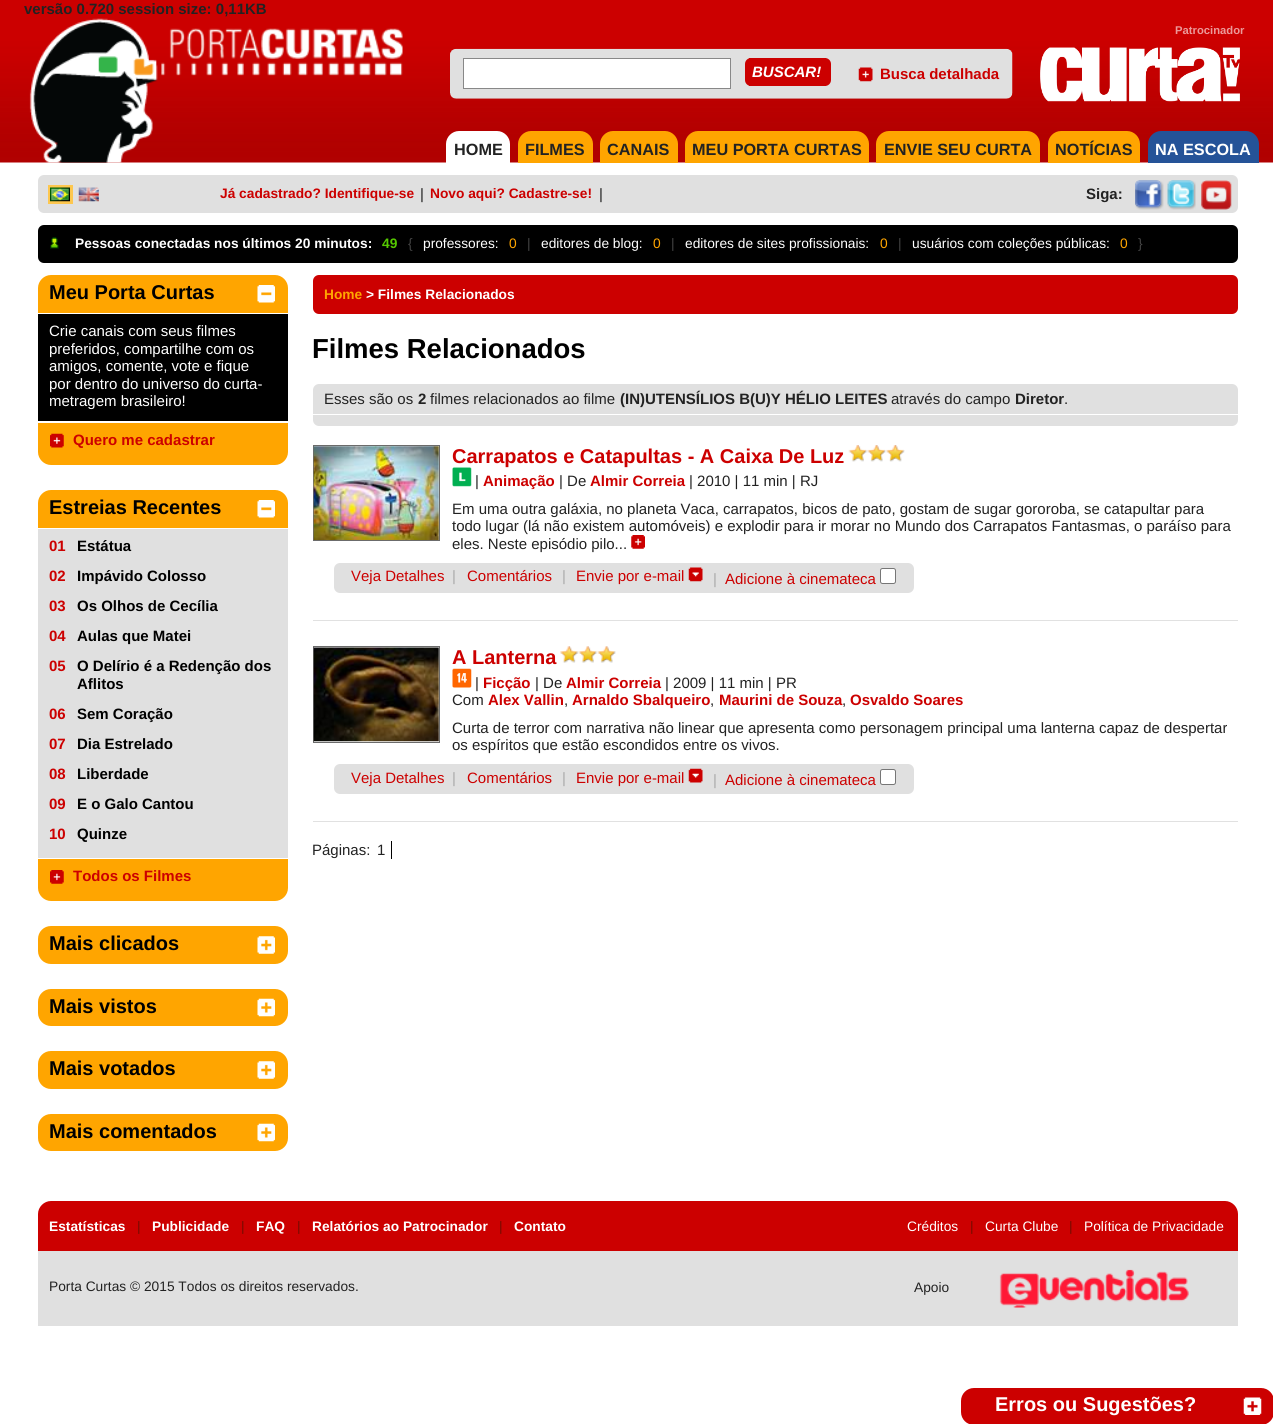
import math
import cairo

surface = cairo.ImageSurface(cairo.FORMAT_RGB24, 1273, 1424)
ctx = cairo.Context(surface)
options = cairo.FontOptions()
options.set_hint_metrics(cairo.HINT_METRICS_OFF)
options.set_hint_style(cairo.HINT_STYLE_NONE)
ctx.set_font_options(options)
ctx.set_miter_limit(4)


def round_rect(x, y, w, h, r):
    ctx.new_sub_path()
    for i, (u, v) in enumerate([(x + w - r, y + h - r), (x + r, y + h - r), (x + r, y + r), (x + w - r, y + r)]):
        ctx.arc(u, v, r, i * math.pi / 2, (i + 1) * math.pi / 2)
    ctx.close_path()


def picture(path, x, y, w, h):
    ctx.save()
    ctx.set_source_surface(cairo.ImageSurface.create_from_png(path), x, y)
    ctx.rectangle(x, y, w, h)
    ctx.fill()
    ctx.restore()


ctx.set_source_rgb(1, 1, 1)
ctx.paint()
picture("img1.png", 0, 0, 1273, 163)
ctx.select_font_face("Liberation Sans", cairo.FONT_SLANT_NORMAL, cairo.FONT_WEIGHT_BOLD)
ctx.set_font_size(15)
ctx.set_source_rgb(0.133, 0.133, 0.133)
ctx.move_to(24, 14)
ctx.show_text("versão 0.720 session size: 0,11KB")
picture("img2.png", 29, 18, 374, 145)
ctx.set_font_size(11.25)
ctx.set_source_rgb(0.918, 0.6, 0.6)
ctx.move_to(1175, 34)
ctx.show_text("Patrocinador")
picture("img3.png", 1040, 47, 200, 55)
picture("img4.png", 450, 48, 563, 51)
ctx.set_source_rgb(1, 1, 1)
ctx.rectangle(463.5, 58.5, 267, 30)
ctx.fill_preserve()
ctx.set_source_rgb(0.533, 0.533, 0.533)
ctx.set_line_width(1)
ctx.stroke()
ctx.set_source_rgb(0.8, 0, 0)
round_rect(745, 58, 86, 28, 6)
ctx.fill()
ctx.rectangle(749, 58, 77, 28)
ctx.fill()
ctx.select_font_face("Liberation Sans", cairo.FONT_SLANT_ITALIC, cairo.FONT_WEIGHT_BOLD)
ctx.set_font_size(15)
ctx.set_source_rgb(1, 1, 1)
ctx.move_to(752, 77)
ctx.show_text("BUSCAR!")
picture("img5.png", 858, 67, 15, 15)
ctx.select_font_face("Liberation Sans", cairo.FONT_SLANT_NORMAL, cairo.FONT_WEIGHT_BOLD)
ctx.set_source_rgb(0.8, 0, 0)
ctx.move_to(880, 79)
ctx.show_text("Busca detalhada")
ctx.set_source_rgb(1, 1, 1)
ctx.new_path()
ctx.move_to(459, 131)
ctx.line_to(497, 131)
ctx.curve_to(504, 131, 510, 137, 510, 144)
ctx.line_to(510, 163)
ctx.line_to(446, 163)
ctx.line_to(446, 144)
ctx.curve_to(446, 137, 452, 131, 459, 131)
ctx.close_path()
ctx.fill()
ctx.set_font_size(16.25)
ctx.set_source_rgb(0.133, 0.133, 0.133)
ctx.move_to(454, 155)
ctx.show_text("HOME")
ctx.set_source_rgb(1, 0.647, 0)
ctx.new_path()
ctx.move_to(531, 131)
ctx.line_to(580, 131)
ctx.curve_to(587, 131, 593, 137, 593, 144)
ctx.line_to(593, 163)
ctx.line_to(518, 163)
ctx.line_to(518, 144)
ctx.curve_to(518, 137, 524, 131, 531, 131)
ctx.close_path()
ctx.fill()
ctx.set_source_rgb(0.133, 0.133, 0.133)
ctx.move_to(525, 155)
ctx.show_text("FILMES")
ctx.set_source_rgb(1, 0.647, 0)
ctx.new_path()
ctx.move_to(613, 131)
ctx.line_to(665, 131)
ctx.curve_to(672, 131, 678, 137, 678, 144)
ctx.line_to(678, 163)
ctx.line_to(600, 163)
ctx.line_to(600, 144)
ctx.curve_to(600, 137, 606, 131, 613, 131)
ctx.close_path()
ctx.fill()
ctx.set_source_rgb(0.133, 0.133, 0.133)
ctx.move_to(607, 155)
ctx.show_text("CANAIS")
ctx.set_source_rgb(1, 0.647, 0)
ctx.new_path()
ctx.move_to(698, 131)
ctx.line_to(856, 131)
ctx.curve_to(863, 131, 869, 137, 869, 144)
ctx.line_to(869, 163)
ctx.line_to(685, 163)
ctx.line_to(685, 144)
ctx.curve_to(685, 137, 691, 131, 698, 131)
ctx.close_path()
ctx.fill()
ctx.set_source_rgb(0.133, 0.133, 0.133)
ctx.move_to(692, 155)
ctx.show_text("MEU PORTA CURTAS")
ctx.set_source_rgb(1, 0.647, 0)
ctx.new_path()
ctx.move_to(889, 131)
ctx.line_to(1027, 131)
ctx.curve_to(1034, 131, 1040, 137, 1040, 144)
ctx.line_to(1040, 163)
ctx.line_to(876, 163)
ctx.line_to(876, 144)
ctx.curve_to(876, 137, 882, 131, 889, 131)
ctx.close_path()
ctx.fill()
ctx.set_source_rgb(0.133, 0.133, 0.133)
ctx.move_to(884, 155)
ctx.show_text("ENVIE SEU CURTA")
ctx.set_source_rgb(1, 0.647, 0)
ctx.new_path()
ctx.move_to(1061, 131)
ctx.line_to(1127, 131)
ctx.curve_to(1134, 131, 1140, 137, 1140, 144)
ctx.line_to(1140, 163)
ctx.line_to(1048, 163)
ctx.line_to(1048, 144)
ctx.curve_to(1048, 137, 1054, 131, 1061, 131)
ctx.close_path()
ctx.fill()
ctx.set_source_rgb(0.133, 0.133, 0.133)
ctx.move_to(1055, 155)
ctx.show_text("NOTÍCIAS")
ctx.set_source_rgb(0.145, 0.325, 0.596)
ctx.new_path()
ctx.move_to(1161, 131)
ctx.line_to(1246, 131)
ctx.curve_to(1253, 131, 1259, 137, 1259, 144)
ctx.line_to(1259, 163)
ctx.line_to(1148, 163)
ctx.line_to(1148, 144)
ctx.curve_to(1148, 137, 1154, 131, 1161, 131)
ctx.close_path()
ctx.fill()
ctx.set_source_rgb(1, 1, 1)
ctx.move_to(1155, 155)
ctx.show_text("NA ESCOLA")
ctx.set_source_rgb(0.878, 0.878, 0.878)
round_rect(38, 175, 1200, 38, 6)
ctx.fill()
ctx.rectangle(49.5, 186.5, 22, 16)
ctx.set_source_rgb(0.992, 0.78, 0.31)
ctx.set_line_width(3)
ctx.stroke()
picture("img6.png", 50, 187, 20, 15)
picture("img7.png", 78, 187, 21, 15)
ctx.set_font_size(13.75)
ctx.set_source_rgb(0.8, 0, 0)
ctx.move_to(220, 198)
ctx.show_text("Já cadastrado? Identifique-se")
ctx.select_font_face("Liberation Sans")
ctx.set_font_size(15)
ctx.set_source_rgb(0.133, 0.133, 0.133)
ctx.move_to(420, 199)
ctx.show_text("|")
ctx.select_font_face("Liberation Sans", cairo.FONT_SLANT_NORMAL, cairo.FONT_WEIGHT_BOLD)
ctx.set_font_size(13.75)
ctx.set_source_rgb(0.8, 0, 0)
ctx.move_to(430, 198)
ctx.show_text("Novo aqui? Cadastre-se!")
ctx.select_font_face("Liberation Sans")
ctx.set_font_size(15)
ctx.set_source_rgb(0.133, 0.133, 0.133)
ctx.move_to(599, 199)
ctx.show_text("|")
ctx.select_font_face("Liberation Sans", cairo.FONT_SLANT_NORMAL, cairo.FONT_WEIGHT_BOLD)
ctx.move_to(1086, 199)
ctx.show_text("Siga:")
picture("img8.png", 1135, 180, 29, 30)
picture("img9.png", 1167, 180, 29, 30)
picture("img10.png", 1201, 180, 31, 30)
ctx.set_source_rgb(0, 0, 0)
round_rect(38, 225, 1200, 38, 6)
ctx.fill()
picture("img11.png", 50, 237, 9, 12)
ctx.set_font_size(13.75)
ctx.set_source_rgb(1, 1, 1)
ctx.move_to(75, 248)
ctx.show_text("Pessoas conectadas nos últimos 20 minutos:")
ctx.set_source_rgb(0.333, 0.784, 0)
ctx.move_to(382, 248)
ctx.show_text("49")
ctx.select_font_face("Liberation Sans")
ctx.set_source_rgb(0.267, 0.267, 0.267)
ctx.move_to(408, 248)
ctx.show_text("{")
ctx.set_source_rgb(1, 1, 1)
ctx.move_to(423, 248)
ctx.show_text("professores:")
ctx.set_source_rgb(1, 0.647, 0)
ctx.move_to(509, 248)
ctx.show_text("0")
ctx.set_source_rgb(0.267, 0.267, 0.267)
ctx.move_to(527, 248)
ctx.show_text("|")
ctx.set_source_rgb(1, 1, 1)
ctx.move_to(541, 248)
ctx.show_text("editores de blog:")
ctx.set_source_rgb(1, 0.647, 0)
ctx.move_to(653, 248)
ctx.show_text("0")
ctx.set_source_rgb(0.267, 0.267, 0.267)
ctx.move_to(671, 248)
ctx.show_text("|")
ctx.set_source_rgb(1, 1, 1)
ctx.move_to(685, 248)
ctx.show_text("editores de sites profissionais:")
ctx.set_source_rgb(1, 0.647, 0)
ctx.move_to(880, 248)
ctx.show_text("0")
ctx.set_source_rgb(0.267, 0.267, 0.267)
ctx.move_to(898, 248)
ctx.show_text("|")
ctx.set_source_rgb(1, 1, 1)
ctx.move_to(912, 248)
ctx.show_text("usuários com coleções públicas:")
ctx.set_source_rgb(1, 0.647, 0)
ctx.move_to(1120, 248)
ctx.show_text("0")
ctx.set_source_rgb(0.267, 0.267, 0.267)
ctx.move_to(1138, 248)
ctx.show_text("}")
ctx.set_source_rgb(1, 0.647, 0)
ctx.new_path()
ctx.move_to(51, 275)
ctx.line_to(275, 275)
ctx.curve_to(282, 275, 288, 281, 288, 288)
ctx.line_to(288, 313)
ctx.line_to(38, 313)
ctx.line_to(38, 288)
ctx.curve_to(38, 281, 44, 275, 51, 275)
ctx.close_path()
ctx.fill()
ctx.select_font_face("Liberation Sans", cairo.FONT_SLANT_NORMAL, cairo.FONT_WEIGHT_BOLD)
ctx.set_font_size(20)
ctx.set_source_rgb(0, 0, 0)
ctx.move_to(49, 299)
ctx.show_text("Meu Porta Curtas")
picture("img12.png", 257, 285, 18, 18)
ctx.rectangle(38, 314, 250, 107)
ctx.fill()
ctx.select_font_face("Liberation Sans")
ctx.set_font_size(15)
ctx.set_source_rgb(1, 1, 1)
ctx.move_to(49, 336)
ctx.show_text("Crie canais com seus filmes")
ctx.move_to(49, 354)
ctx.show_text("preferidos, compartilhe com os")
ctx.move_to(49, 371)
ctx.show_text("amigos, comente, vote e fique")
ctx.move_to(49, 389)
ctx.show_text("por dentro do universo do curta-")
ctx.move_to(49, 406)
ctx.show_text("metragem brasileiro!")
ctx.set_source_rgb(1, 0.647, 0)
ctx.new_path()
ctx.move_to(38, 423)
ctx.line_to(288, 423)
ctx.line_to(288, 452)
ctx.curve_to(288, 459, 282, 465, 275, 465)
ctx.line_to(51, 465)
ctx.curve_to(44, 465, 38, 459, 38, 452)
ctx.close_path()
ctx.fill()
picture("img13.png", 50, 433, 14, 15)
ctx.select_font_face("Liberation Sans", cairo.FONT_SLANT_NORMAL, cairo.FONT_WEIGHT_BOLD)
ctx.set_source_rgb(0.8, 0, 0)
ctx.move_to(73, 445)
ctx.show_text("Quero me cadastrar")
ctx.set_source_rgb(1, 0.647, 0)
ctx.new_path()
ctx.move_to(51, 490)
ctx.line_to(275, 490)
ctx.curve_to(282, 490, 288, 496, 288, 503)
ctx.line_to(288, 528)
ctx.line_to(38, 528)
ctx.line_to(38, 503)
ctx.curve_to(38, 496, 44, 490, 51, 490)
ctx.close_path()
ctx.fill()
ctx.set_font_size(20)
ctx.set_source_rgb(0, 0, 0)
ctx.move_to(49, 514)
ctx.show_text("Estreias Recentes")
picture("img14.png", 257, 500, 18, 18)
ctx.set_source_rgb(0.878, 0.878, 0.878)
ctx.rectangle(38, 529, 250, 329)
ctx.fill()
ctx.set_font_size(15)
ctx.set_source_rgb(0.8, 0, 0)
ctx.move_to(49, 551)
ctx.show_text("01")
ctx.set_source_rgb(0, 0, 0)
ctx.move_to(77, 551)
ctx.show_text("Estátua")
ctx.set_source_rgb(0.8, 0, 0)
ctx.move_to(49, 581)
ctx.show_text("02")
ctx.set_source_rgb(0, 0, 0)
ctx.move_to(77, 581)
ctx.show_text("Impávido Colosso")
ctx.set_source_rgb(0.8, 0, 0)
ctx.move_to(49, 611)
ctx.show_text("03")
ctx.set_source_rgb(0, 0, 0)
ctx.move_to(77, 611)
ctx.show_text("Os Olhos de Cecília")
ctx.set_source_rgb(0.8, 0, 0)
ctx.move_to(49, 641)
ctx.show_text("04")
ctx.set_source_rgb(0, 0, 0)
ctx.move_to(77, 641)
ctx.show_text("Aulas que Matei")
ctx.set_source_rgb(0.8, 0, 0)
ctx.move_to(49, 671)
ctx.show_text("05")
ctx.set_source_rgb(0, 0, 0)
ctx.move_to(77, 671)
ctx.show_text("O Delírio é a Redenção dos")
ctx.move_to(77, 689)
ctx.show_text("Aflitos")
ctx.set_source_rgb(0.8, 0, 0)
ctx.move_to(49, 719)
ctx.show_text("06")
ctx.set_source_rgb(0, 0, 0)
ctx.move_to(77, 719)
ctx.show_text("Sem Coração")
ctx.set_source_rgb(0.8, 0, 0)
ctx.move_to(49, 749)
ctx.show_text("07")
ctx.set_source_rgb(0, 0, 0)
ctx.move_to(77, 749)
ctx.show_text("Dia Estrelado")
ctx.set_source_rgb(0.8, 0, 0)
ctx.move_to(49, 779)
ctx.show_text("08")
ctx.set_source_rgb(0, 0, 0)
ctx.move_to(77, 779)
ctx.show_text("Liberdade")
ctx.set_source_rgb(0.8, 0, 0)
ctx.move_to(49, 809)
ctx.show_text("09")
ctx.set_source_rgb(0, 0, 0)
ctx.move_to(77, 809)
ctx.show_text("E o Galo Cantou")
ctx.set_source_rgb(0.8, 0, 0)
ctx.move_to(49, 839)
ctx.show_text("10")
ctx.set_source_rgb(0, 0, 0)
ctx.move_to(77, 839)
ctx.show_text("Quinze")
ctx.set_source_rgb(1, 0.647, 0)
ctx.new_path()
ctx.move_to(38, 859)
ctx.line_to(288, 859)
ctx.line_to(288, 888)
ctx.curve_to(288, 895, 282, 901, 275, 901)
ctx.line_to(51, 901)
ctx.curve_to(44, 901, 38, 895, 38, 888)
ctx.close_path()
ctx.fill()
picture("img15.png", 50, 870, 14, 14)
ctx.set_source_rgb(0.8, 0, 0)
ctx.move_to(73, 881)
ctx.show_text("Todos os Filmes")
ctx.set_source_rgb(1, 0.647, 0)
round_rect(38, 926, 250, 38, 13)
ctx.fill()
ctx.set_font_size(20)
ctx.set_source_rgb(0, 0, 0)
ctx.move_to(49, 950)
ctx.show_text("Mais clicados")
picture("img16.png", 257, 936, 18, 18)
ctx.set_source_rgb(1, 0.647, 0)
round_rect(38, 989, 250, 37, 13)
ctx.fill()
ctx.set_source_rgb(0, 0, 0)
ctx.move_to(49, 1013)
ctx.show_text("Mais vistos")
picture("img17.png", 257, 998, 18, 19)
ctx.set_source_rgb(1, 0.647, 0)
round_rect(38, 1051, 250, 38, 13)
ctx.fill()
ctx.set_source_rgb(0, 0, 0)
ctx.move_to(49, 1075)
ctx.show_text("Mais votados")
picture("img16.png", 257, 1061, 18, 18)
ctx.set_source_rgb(1, 0.647, 0)
round_rect(38, 1114, 250, 37, 13)
ctx.fill()
ctx.set_source_rgb(0, 0, 0)
ctx.move_to(49, 1138)
ctx.show_text("Mais comentados")
picture("img17.png", 257, 1123, 18, 19)
ctx.set_source_rgb(0.8, 0, 0)
round_rect(313, 275, 925, 39, 6)
ctx.fill()
ctx.set_font_size(13.75)
ctx.set_source_rgb(1, 0.647, 0)
ctx.move_to(324, 299)
ctx.show_text("Home")
ctx.set_source_rgb(1, 1, 1)
ctx.move_to(366, 299)
ctx.show_text("> Filmes Relacionados")
ctx.set_font_size(27.5)
ctx.set_source_rgb(0, 0, 0)
ctx.move_to(312, 358)
ctx.show_text("Filmes Relacionados")
ctx.set_source_rgb(0.878, 0.878, 0.878)
round_rect(313, 384, 925, 42, 6)
ctx.fill()
ctx.set_source_rgb(1, 1, 1)
ctx.rectangle(313, 414, 925, 1)
ctx.fill()
ctx.select_font_face("Liberation Sans")
ctx.set_font_size(15)
ctx.set_source_rgb(0.133, 0.133, 0.133)
ctx.move_to(324, 404)
ctx.show_text("Esses são os")
ctx.select_font_face("Liberation Sans", cairo.FONT_SLANT_NORMAL, cairo.FONT_WEIGHT_BOLD)
ctx.move_to(418, 404)
ctx.show_text("2")
ctx.select_font_face("Liberation Sans")
ctx.move_to(430, 404)
ctx.show_text("filmes relacionados ao filme")
ctx.select_font_face("Liberation Sans", cairo.FONT_SLANT_NORMAL, cairo.FONT_WEIGHT_BOLD)
ctx.move_to(620, 404)
ctx.show_text("(IN)UTENSÍLIOS B(U)Y HÉLIO LEITES")
ctx.select_font_face("Liberation Sans")
ctx.move_to(891, 404)
ctx.show_text("através do campo")
ctx.select_font_face("Liberation Sans", cairo.FONT_SLANT_NORMAL, cairo.FONT_WEIGHT_BOLD)
ctx.move_to(1015, 404)
ctx.show_text("Diretor")
ctx.select_font_face("Liberation Sans")
ctx.move_to(1064, 404)
ctx.show_text(".")
ctx.set_source_rgb(0.882, 0.882, 0.882)
ctx.rectangle(313, 620, 925, 1)
ctx.fill()
ctx.rectangle(313.5, 445.5, 126, 95)
ctx.set_source_rgb(0.42, 0.42, 0.42)
ctx.set_line_width(1)
ctx.stroke()
picture("img18.png", 313, 446, 126, 94)
ctx.select_font_face("Liberation Sans", cairo.FONT_SLANT_NORMAL, cairo.FONT_WEIGHT_BOLD)
ctx.set_font_size(20)
ctx.set_source_rgb(0.8, 0, 0)
ctx.move_to(452, 463)
ctx.show_text("Carrapatos e Catapultas - A Caixa De Luz")
picture("img19.png", 848, 445, 20, 17)
picture("img20.png", 867, 445, 19, 17)
picture("img21.png", 886, 445, 19, 17)
picture("img22.png", 452, 467, 20, 20)
ctx.select_font_face("Liberation Sans")
ctx.set_font_size(15)
ctx.set_source_rgb(0.133, 0.133, 0.133)
ctx.move_to(475, 486)
ctx.show_text("|")
ctx.select_font_face("Liberation Sans", cairo.FONT_SLANT_NORMAL, cairo.FONT_WEIGHT_BOLD)
ctx.set_source_rgb(0.8, 0, 0)
ctx.move_to(483, 486)
ctx.show_text("Animação")
ctx.select_font_face("Liberation Sans")
ctx.set_source_rgb(0.133, 0.133, 0.133)
ctx.move_to(559, 486)
ctx.show_text("| De")
ctx.select_font_face("Liberation Sans", cairo.FONT_SLANT_NORMAL, cairo.FONT_WEIGHT_BOLD)
ctx.set_source_rgb(0.8, 0, 0)
ctx.move_to(590, 486)
ctx.show_text("Almir Correia")
ctx.select_font_face("Liberation Sans")
ctx.set_source_rgb(0.133, 0.133, 0.133)
ctx.move_to(689, 486)
ctx.show_text("| 2010 | 11 min | RJ")
ctx.move_to(452, 514)
ctx.show_text("Em uma outra galáxia, no planeta Vaca, carrapatos, bicos de pato, gostam de sugar gororoba, se catapultar para")
ctx.move_to(452, 531)
ctx.show_text("todo lugar (lá não existem automóveis) e explodir para ir morar no Mundo dos Carrapatos Fantasmas, o paráíso para")
ctx.move_to(452, 549)
ctx.show_text("eles. Neste episódio pilo...")
picture("img23.png", 631, 535, 14, 14)
ctx.set_source_rgb(0.878, 0.878, 0.878)
round_rect(334, 563, 580, 30, 6)
ctx.fill()
ctx.set_source_rgb(0.8, 0, 0)
ctx.move_to(351, 581)
ctx.show_text("Veja Detalhes")
ctx.set_source_rgb(0.667, 0.667, 0.667)
ctx.move_to(452, 581)
ctx.show_text("|")
ctx.set_source_rgb(0.8, 0, 0)
ctx.move_to(467, 581)
ctx.show_text("Comentários")
ctx.set_source_rgb(0.667, 0.667, 0.667)
ctx.move_to(562, 581)
ctx.show_text("|")
ctx.set_source_rgb(0.8, 0, 0)
ctx.move_to(576, 581)
ctx.show_text("Envie por e-mail")
picture("img24.png", 688, 567, 15, 15)
ctx.set_source_rgb(0.667, 0.667, 0.667)
ctx.move_to(713, 584)
ctx.show_text("|")
ctx.set_source_rgb(0.8, 0, 0)
ctx.move_to(725, 584)
ctx.show_text("Adicione à cinemateca")
ctx.set_source_rgb(1, 1, 1)
round_rect(880.5, 568.5, 15, 15, 2)
ctx.fill_preserve()
ctx.set_source_rgb(0.463, 0.463, 0.463)
ctx.stroke()
ctx.set_source_rgb(0.882, 0.882, 0.882)
ctx.rectangle(313, 821, 925, 1)
ctx.fill()
ctx.rectangle(313.5, 646.5, 126, 96)
ctx.set_source_rgb(0.42, 0.42, 0.42)
ctx.stroke()
picture("img25.png", 313, 647, 126, 95)
ctx.select_font_face("Liberation Sans", cairo.FONT_SLANT_NORMAL, cairo.FONT_WEIGHT_BOLD)
ctx.set_font_size(20)
ctx.set_source_rgb(0.8, 0, 0)
ctx.move_to(452, 664)
ctx.show_text("A Lanterna")
picture("img26.png", 560, 646, 19, 17)
picture("img27.png", 578, 646, 19, 17)
picture("img28.png", 597, 646, 19, 17)
picture("img29.png", 452, 668, 20, 20)
ctx.select_font_face("Liberation Sans")
ctx.set_font_size(15)
ctx.set_source_rgb(0.133, 0.133, 0.133)
ctx.move_to(475, 688)
ctx.show_text("|")
ctx.select_font_face("Liberation Sans", cairo.FONT_SLANT_NORMAL, cairo.FONT_WEIGHT_BOLD)
ctx.set_source_rgb(0.8, 0, 0)
ctx.move_to(483, 688)
ctx.show_text("Ficção")
ctx.select_font_face("Liberation Sans")
ctx.set_source_rgb(0.133, 0.133, 0.133)
ctx.move_to(535, 688)
ctx.show_text("| De")
ctx.select_font_face("Liberation Sans", cairo.FONT_SLANT_NORMAL, cairo.FONT_WEIGHT_BOLD)
ctx.set_source_rgb(0.8, 0, 0)
ctx.move_to(566, 688)
ctx.show_text("Almir Correia")
ctx.select_font_face("Liberation Sans")
ctx.set_source_rgb(0.133, 0.133, 0.133)
ctx.move_to(665, 688)
ctx.show_text("| 2009 | 11 min | PR")
ctx.move_to(452, 705)
ctx.show_text("Com")
ctx.select_font_face("Liberation Sans", cairo.FONT_SLANT_NORMAL, cairo.FONT_WEIGHT_BOLD)
ctx.set_source_rgb(0.8, 0, 0)
ctx.move_to(488, 705)
ctx.show_text("Alex Vallin")
ctx.select_font_face("Liberation Sans")
ctx.set_source_rgb(0.133, 0.133, 0.133)
ctx.move_to(564, 705)
ctx.show_text(",")
ctx.select_font_face("Liberation Sans", cairo.FONT_SLANT_NORMAL, cairo.FONT_WEIGHT_BOLD)
ctx.set_source_rgb(0.8, 0, 0)
ctx.move_to(572, 705)
ctx.show_text("Arnaldo Sbalqueiro")
ctx.select_font_face("Liberation Sans")
ctx.set_source_rgb(0.133, 0.133, 0.133)
ctx.move_to(710, 705)
ctx.show_text(",")
ctx.select_font_face("Liberation Sans", cairo.FONT_SLANT_NORMAL, cairo.FONT_WEIGHT_BOLD)
ctx.set_source_rgb(0.8, 0, 0)
ctx.move_to(719, 705)
ctx.show_text("Maurini de Souza")
ctx.select_font_face("Liberation Sans")
ctx.set_source_rgb(0.133, 0.133, 0.133)
ctx.move_to(842, 705)
ctx.show_text(",")
ctx.select_font_face("Liberation Sans", cairo.FONT_SLANT_NORMAL, cairo.FONT_WEIGHT_BOLD)
ctx.set_source_rgb(0.8, 0, 0)
ctx.move_to(850, 705)
ctx.show_text("Osvaldo Soares")
ctx.select_font_face("Liberation Sans")
ctx.set_source_rgb(0.133, 0.133, 0.133)
ctx.move_to(452, 733)
ctx.show_text("Curta de terror com narrativa não linear que apresenta como personagem principal uma lanterna capaz de despertar")
ctx.move_to(452, 750)
ctx.show_text("os espíritos que estão escondidos entre os vivos.")
ctx.set_source_rgb(0.878, 0.878, 0.878)
round_rect(334, 764, 580, 30, 6)
ctx.fill()
ctx.set_source_rgb(0.8, 0, 0)
ctx.move_to(351, 783)
ctx.show_text("Veja Detalhes")
ctx.set_source_rgb(0.667, 0.667, 0.667)
ctx.move_to(452, 783)
ctx.show_text("|")
ctx.set_source_rgb(0.8, 0, 0)
ctx.move_to(467, 783)
ctx.show_text("Comentários")
ctx.set_source_rgb(0.667, 0.667, 0.667)
ctx.move_to(562, 783)
ctx.show_text("|")
ctx.set_source_rgb(0.8, 0, 0)
ctx.move_to(576, 783)
ctx.show_text("Envie por e-mail")
picture("img30.png", 688, 768, 15, 15)
ctx.set_source_rgb(0.667, 0.667, 0.667)
ctx.move_to(713, 785)
ctx.show_text("|")
ctx.set_source_rgb(0.8, 0, 0)
ctx.move_to(725, 785)
ctx.show_text("Adicione à cinemateca")
ctx.set_source_rgb(1, 1, 1)
round_rect(880.5, 769.5, 15, 15, 2)
ctx.fill_preserve()
ctx.set_source_rgb(0.463, 0.463, 0.463)
ctx.stroke()
ctx.set_source_rgb(0.133, 0.133, 0.133)
ctx.move_to(312, 855)
ctx.show_text("Páginas:")
ctx.move_to(377, 855)
ctx.show_text("1")
ctx.set_source_rgb(0.004, 0.004, 0.004)
ctx.rectangle(391, 841, 1, 18)
ctx.fill()
ctx.set_source_rgb(0.8, 0, 0)
ctx.new_path()
ctx.move_to(51, 1201)
ctx.line_to(1225, 1201)
ctx.curve_to(1232, 1201, 1238, 1207, 1238, 1214)
ctx.line_to(1238, 1251)
ctx.line_to(38, 1251)
ctx.line_to(38, 1214)
ctx.curve_to(38, 1207, 44, 1201, 51, 1201)
ctx.close_path()
ctx.fill()
ctx.select_font_face("Liberation Sans", cairo.FONT_SLANT_NORMAL, cairo.FONT_WEIGHT_BOLD)
ctx.set_font_size(13.75)
ctx.set_source_rgb(1, 1, 1)
ctx.move_to(49, 1231)
ctx.show_text("Estatísticas")
ctx.select_font_face("Liberation Sans")
ctx.set_source_rgb(0.455, 0.047, 0)
ctx.move_to(137, 1231)
ctx.show_text("|")
ctx.select_font_face("Liberation Sans", cairo.FONT_SLANT_NORMAL, cairo.FONT_WEIGHT_BOLD)
ctx.set_source_rgb(1, 1, 1)
ctx.move_to(152, 1231)
ctx.show_text("Publicidade")
ctx.select_font_face("Liberation Sans")
ctx.set_source_rgb(0.455, 0.047, 0)
ctx.move_to(241, 1231)
ctx.show_text("|")
ctx.select_font_face("Liberation Sans", cairo.FONT_SLANT_NORMAL, cairo.FONT_WEIGHT_BOLD)
ctx.set_source_rgb(1, 1, 1)
ctx.move_to(256, 1231)
ctx.show_text("FAQ")
ctx.select_font_face("Liberation Sans")
ctx.set_source_rgb(0.455, 0.047, 0)
ctx.move_to(297, 1231)
ctx.show_text("|")
ctx.select_font_face("Liberation Sans", cairo.FONT_SLANT_NORMAL, cairo.FONT_WEIGHT_BOLD)
ctx.set_source_rgb(1, 1, 1)
ctx.move_to(312, 1231)
ctx.show_text("Relatórios ao Patrocinador")
ctx.select_font_face("Liberation Sans")
ctx.set_source_rgb(0.455, 0.047, 0)
ctx.move_to(499, 1231)
ctx.show_text("|")
ctx.select_font_face("Liberation Sans", cairo.FONT_SLANT_NORMAL, cairo.FONT_WEIGHT_BOLD)
ctx.set_source_rgb(1, 1, 1)
ctx.move_to(514, 1231)
ctx.show_text("Contato")
ctx.select_font_face("Liberation Sans")
ctx.move_to(907, 1231)
ctx.show_text("Créditos")
ctx.set_source_rgb(0.455, 0.047, 0)
ctx.move_to(970, 1231)
ctx.show_text("|")
ctx.set_source_rgb(1, 1, 1)
ctx.move_to(985, 1231)
ctx.show_text("Curta Clube")
ctx.set_source_rgb(0.455, 0.047, 0)
ctx.move_to(1069, 1231)
ctx.show_text("|")
ctx.set_source_rgb(1, 1, 1)
ctx.move_to(1084, 1231)
ctx.show_text("Política de Privacidade")
ctx.set_source_rgb(0.878, 0.878, 0.878)
ctx.rectangle(38, 1251, 1200, 75)
ctx.fill()
ctx.set_source_rgb(0.133, 0.133, 0.133)
ctx.move_to(49, 1291)
ctx.show_text("Porta Curtas © 2015 Todos os direitos reservados.")
ctx.move_to(914, 1292)
ctx.show_text("Apoio")
picture("img31.png", 999, 1269, 190, 39)
ctx.set_source_rgb(0.8, 0, 0)
round_rect(961, 1388, 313, 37, 13)
ctx.fill()
ctx.select_font_face("Liberation Sans", cairo.FONT_SLANT_NORMAL, cairo.FONT_WEIGHT_BOLD)
ctx.set_font_size(20)
ctx.set_source_rgb(1, 1, 1)
ctx.move_to(995, 1411)
ctx.show_text("Erros ou Sugestões?")
picture("img32.png", 1243, 1397, 19, 18)
surface.write_to_png("page.png")
